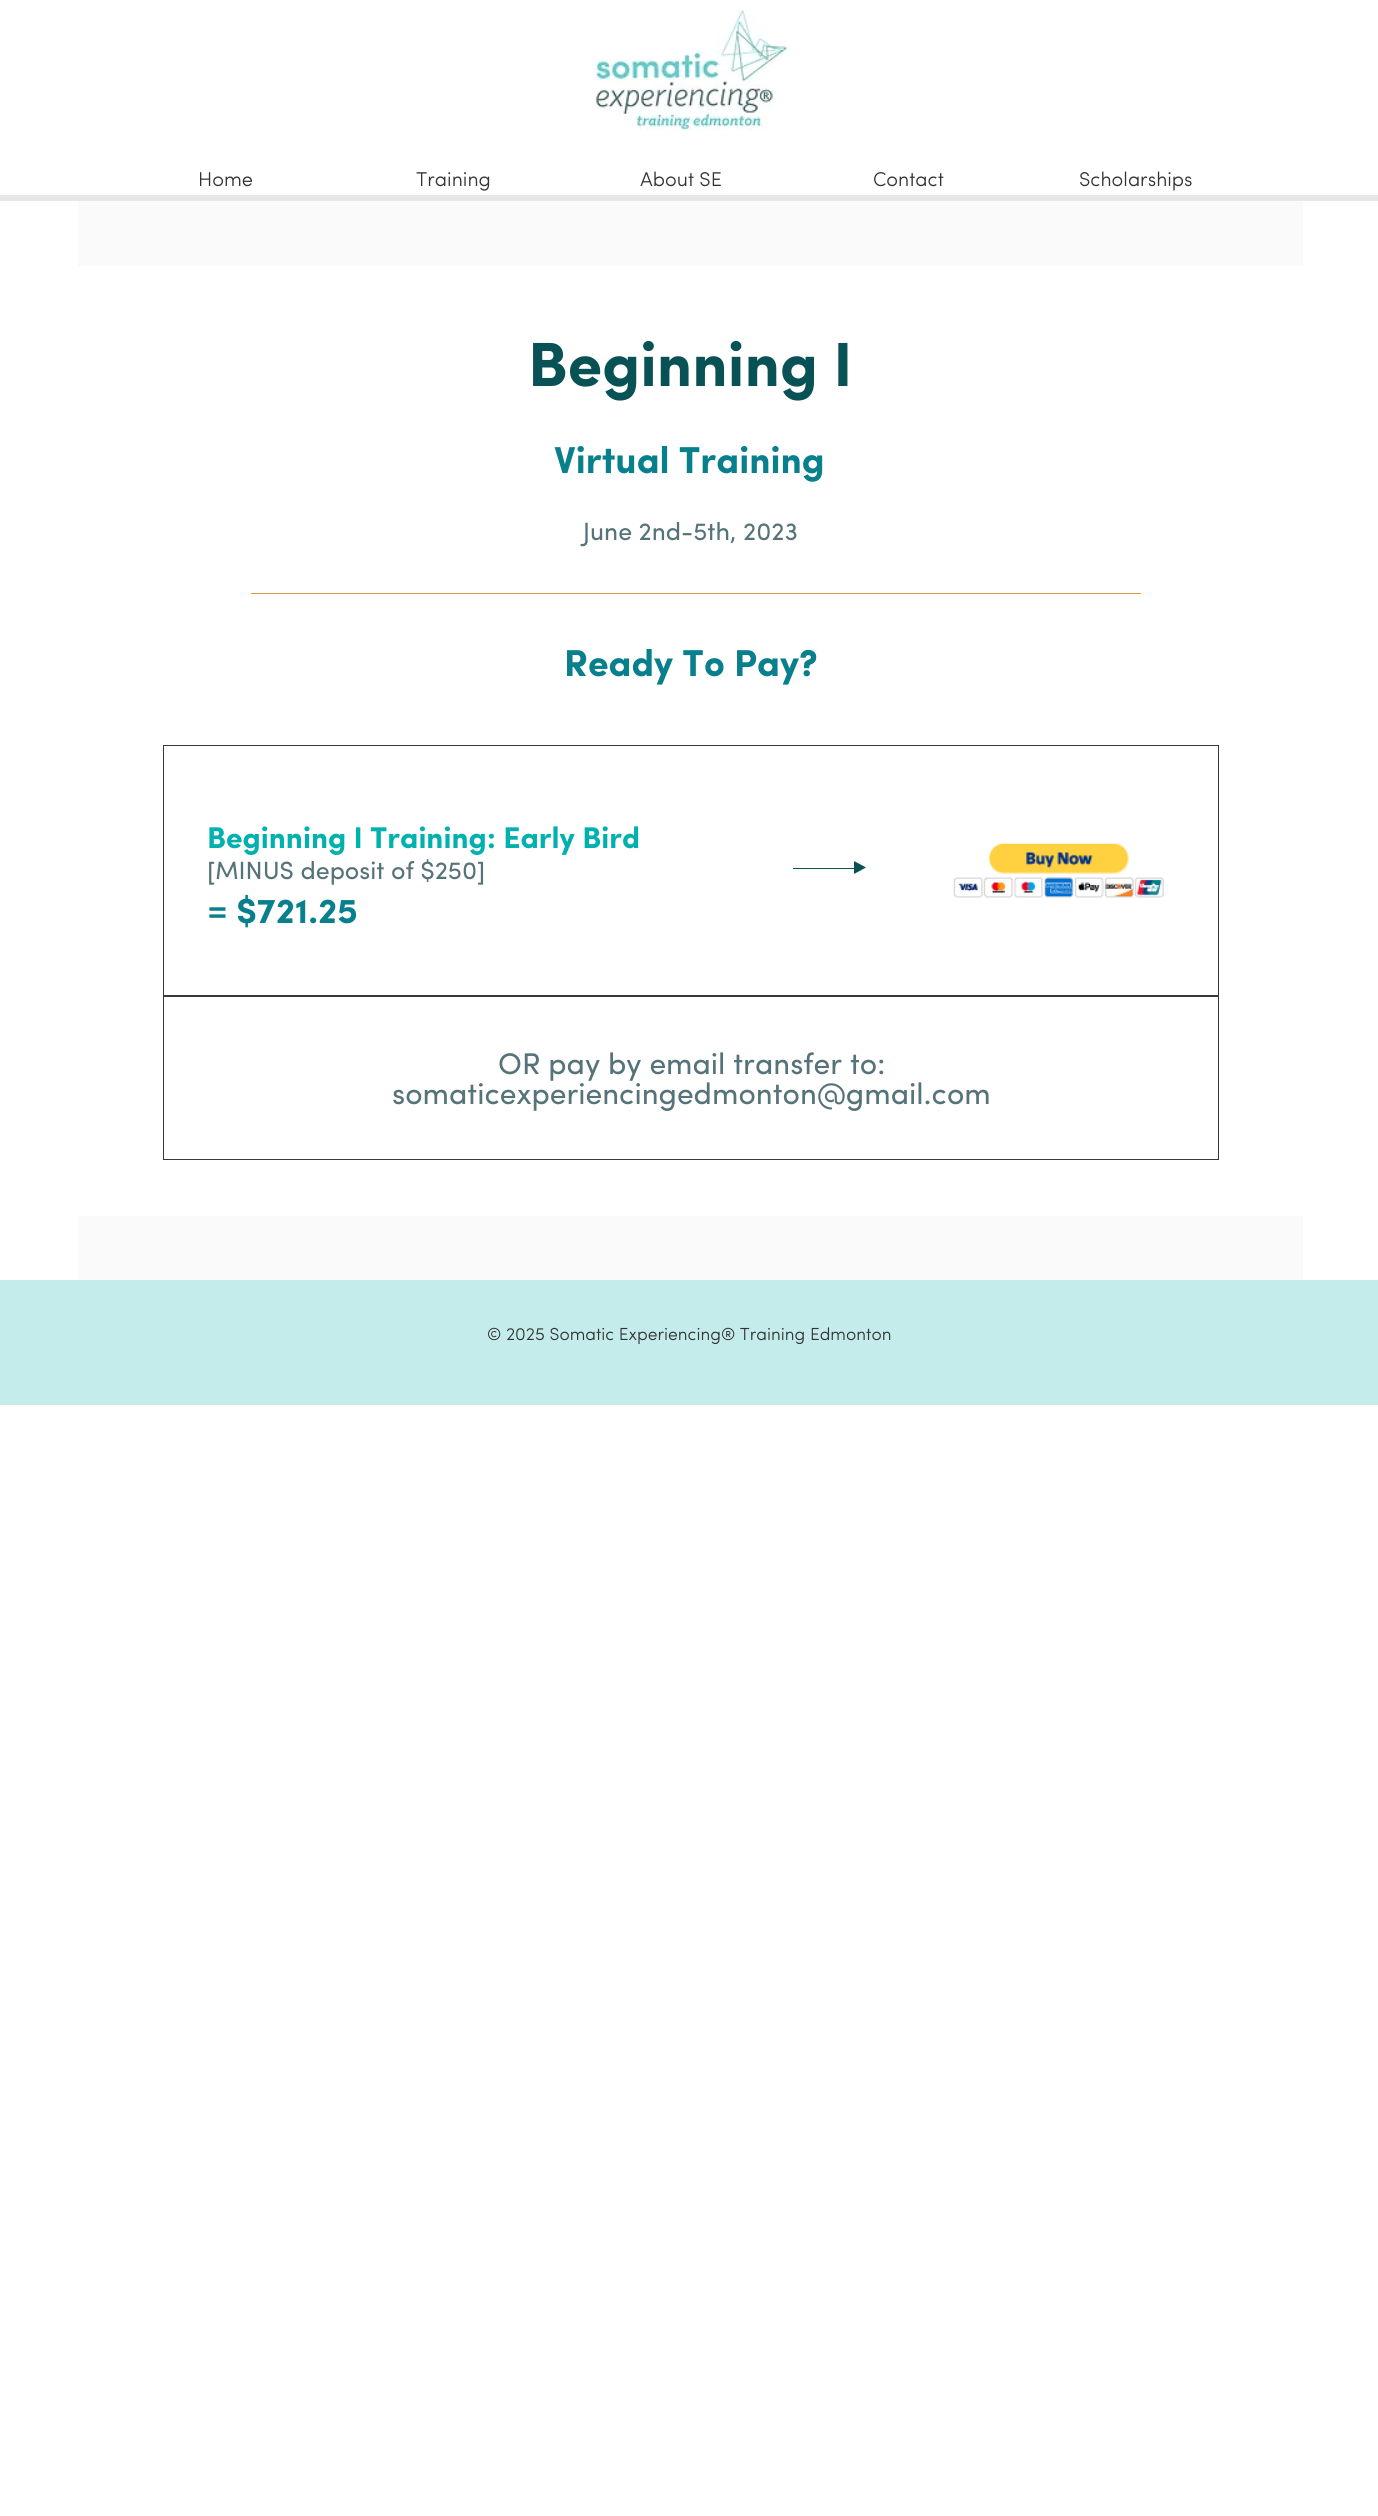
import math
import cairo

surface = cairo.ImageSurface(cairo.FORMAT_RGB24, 1378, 2516)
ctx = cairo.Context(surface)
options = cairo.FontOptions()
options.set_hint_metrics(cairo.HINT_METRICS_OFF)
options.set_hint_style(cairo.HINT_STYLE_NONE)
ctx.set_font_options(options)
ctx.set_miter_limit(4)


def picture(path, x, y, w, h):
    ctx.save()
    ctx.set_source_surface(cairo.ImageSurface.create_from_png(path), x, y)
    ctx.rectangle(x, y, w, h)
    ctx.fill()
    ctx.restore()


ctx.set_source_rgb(1, 1, 1)
ctx.paint()
picture("img1.png", 593, 9, 196, 122)
ctx.select_font_face("Sofia Light")
ctx.set_font_size(20)
ctx.set_source_rgb(0.2, 0.2, 0.2)
ctx.move_to(198, 186)
ctx.show_text("Home")
ctx.move_to(416, 186)
ctx.show_text("Training")
ctx.move_to(640, 186)
ctx.show_text("About SE")
ctx.move_to(873, 186)
ctx.show_text("Contact")
ctx.move_to(1079, 186)
ctx.show_text("Scholarships")
ctx.set_source_rgb(0.91, 0.902, 0.902)
ctx.rectangle(0, 195, 1378, 6)
ctx.fill()
ctx.set_source_rgb(0.98, 0.98, 0.98)
ctx.rectangle(78, 201, 1225, 1079)
ctx.fill()
ctx.set_source_rgb(1, 1, 1)
ctx.rectangle(78, 266, 1225, 950)
ctx.fill()
ctx.select_font_face("Sofia", cairo.FONT_SLANT_NORMAL, cairo.FONT_WEIGHT_BOLD)
ctx.set_font_size(62.5)
ctx.set_source_rgb(0.035, 0.322, 0.337)
ctx.move_to(528, 386)
ctx.show_text("Beginning I")
ctx.set_font_size(37.5)
ctx.set_source_rgb(0.031, 0.498, 0.549)
ctx.move_to(554, 473)
ctx.show_text("Virtual Training")
ctx.select_font_face("Sofia")
ctx.set_font_size(25)
ctx.set_source_rgb(0.341, 0.451, 0.478)
ctx.move_to(583, 540)
ctx.show_text("June 2nd-5th, 2023")
ctx.set_source_rgb(0.882, 0.592, 0.286)
ctx.rectangle(251, 593, 890, 1)
ctx.fill()
ctx.select_font_face("Sofia", cairo.FONT_SLANT_NORMAL, cairo.FONT_WEIGHT_BOLD)
ctx.set_font_size(37.5)
ctx.set_source_rgb(0.031, 0.498, 0.549)
ctx.move_to(564, 676)
ctx.show_text("Ready To Pay?")
ctx.rectangle(163.5, 745.5, 1055, 250)
ctx.set_source_rgb(0.22, 0.22, 0.22)
ctx.set_line_width(1)
ctx.stroke()
ctx.set_font_size(30)
ctx.set_source_rgb(0.004, 0.694, 0.686)
ctx.move_to(207, 848)
ctx.show_text("Beginning I Training: Early Bird")
ctx.select_font_face("Sofia")
ctx.set_font_size(25)
ctx.set_source_rgb(0.341, 0.451, 0.478)
ctx.move_to(207, 879)
ctx.show_text("[MINUS deposit of $250]")
ctx.select_font_face("Sofia", cairo.FONT_SLANT_NORMAL, cairo.FONT_WEIGHT_BOLD)
ctx.set_font_size(35)
ctx.set_source_rgb(0.031, 0.498, 0.549)
ctx.move_to(207, 923)
ctx.show_text("= $721.25")
ctx.set_source_rgb(0.035, 0.322, 0.337)
ctx.rectangle(793, 868, 67, 1)
ctx.fill()
ctx.new_path()
ctx.move_to(854, 874)
ctx.line_to(854, 861)
ctx.line_to(866, 867.5)
ctx.close_path()
ctx.fill()
picture("img2.png", 953, 843, 211, 55)
ctx.rectangle(163.5, 996.5, 1055, 163)
ctx.set_source_rgb(0.22, 0.22, 0.22)
ctx.stroke()
ctx.select_font_face("Sofia")
ctx.set_font_size(30)
ctx.set_source_rgb(0.341, 0.451, 0.478)
ctx.move_to(498, 1074)
ctx.show_text("OR pay by email transfer to:")
ctx.move_to(392, 1104)
ctx.show_text("somaticexperiencingedmonton@gmail.com")
ctx.set_source_rgb(0.765, 0.922, 0.918)
ctx.rectangle(0, 1280, 1378, 125)
ctx.fill()
ctx.select_font_face("Sofia Light")
ctx.set_font_size(17.5)
ctx.set_source_rgb(0.2, 0.2, 0.2)
ctx.move_to(487, 1340)
ctx.show_text("© 2025 Somatic Experiencing® Training Edmonton")
surface.write_to_png("page.png")
